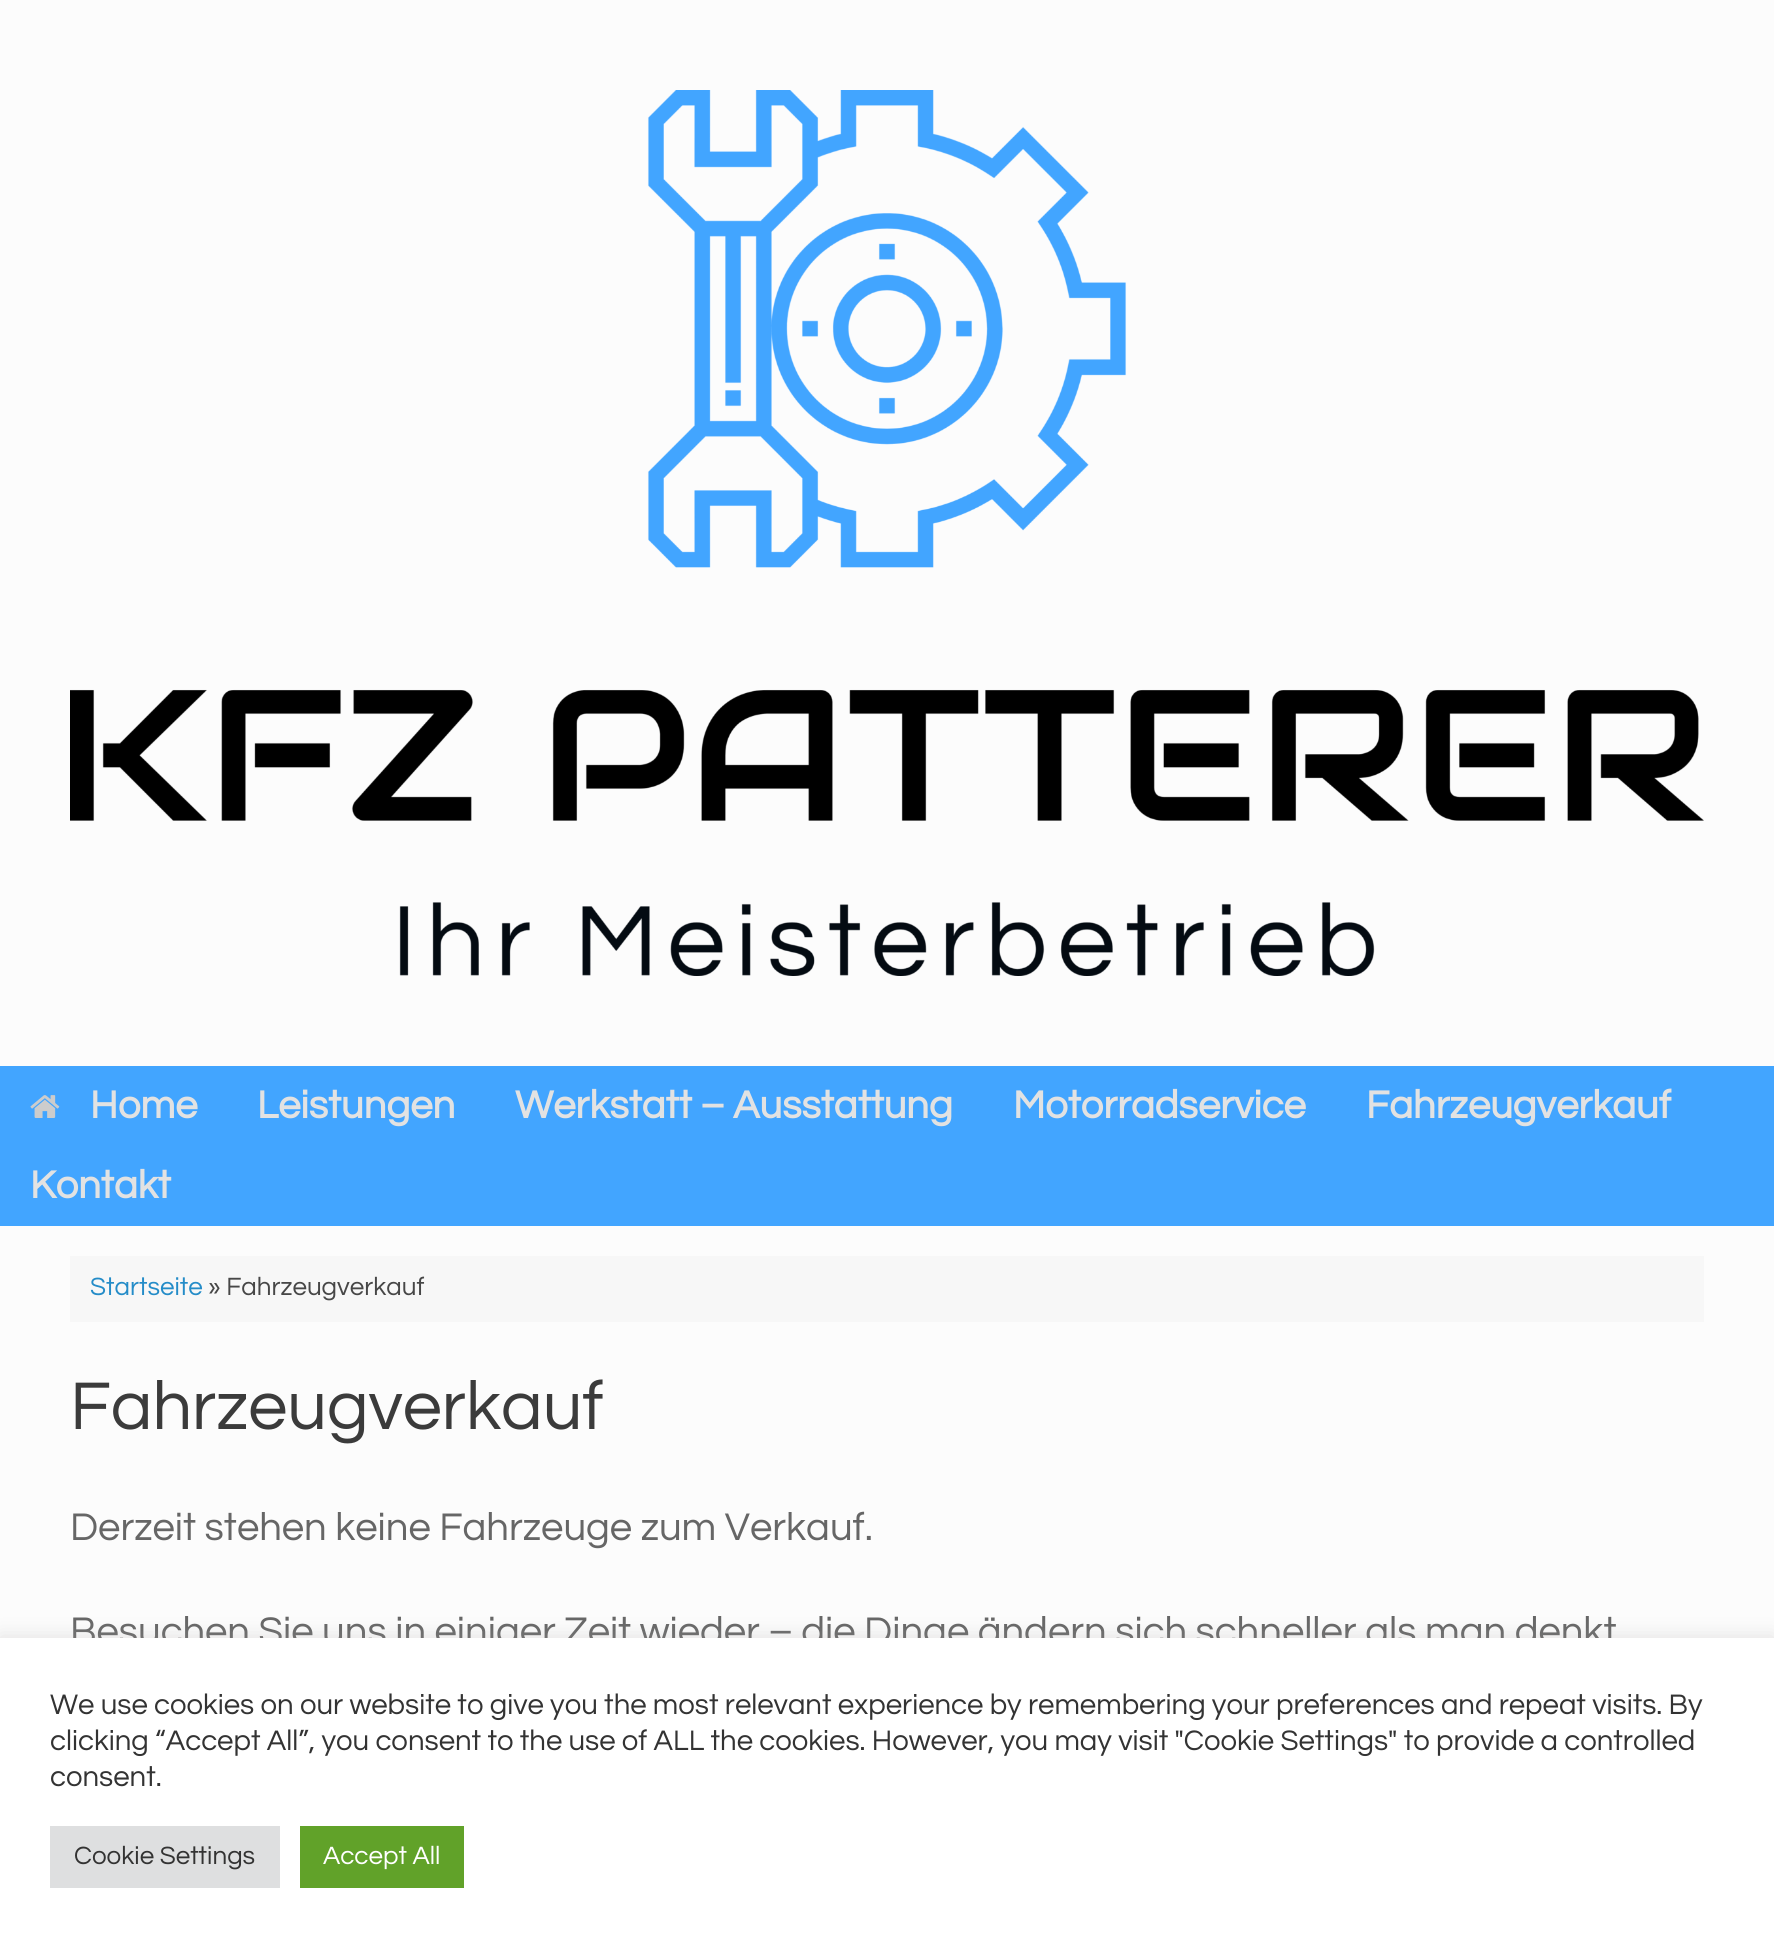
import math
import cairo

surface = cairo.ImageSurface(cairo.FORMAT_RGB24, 1774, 1948)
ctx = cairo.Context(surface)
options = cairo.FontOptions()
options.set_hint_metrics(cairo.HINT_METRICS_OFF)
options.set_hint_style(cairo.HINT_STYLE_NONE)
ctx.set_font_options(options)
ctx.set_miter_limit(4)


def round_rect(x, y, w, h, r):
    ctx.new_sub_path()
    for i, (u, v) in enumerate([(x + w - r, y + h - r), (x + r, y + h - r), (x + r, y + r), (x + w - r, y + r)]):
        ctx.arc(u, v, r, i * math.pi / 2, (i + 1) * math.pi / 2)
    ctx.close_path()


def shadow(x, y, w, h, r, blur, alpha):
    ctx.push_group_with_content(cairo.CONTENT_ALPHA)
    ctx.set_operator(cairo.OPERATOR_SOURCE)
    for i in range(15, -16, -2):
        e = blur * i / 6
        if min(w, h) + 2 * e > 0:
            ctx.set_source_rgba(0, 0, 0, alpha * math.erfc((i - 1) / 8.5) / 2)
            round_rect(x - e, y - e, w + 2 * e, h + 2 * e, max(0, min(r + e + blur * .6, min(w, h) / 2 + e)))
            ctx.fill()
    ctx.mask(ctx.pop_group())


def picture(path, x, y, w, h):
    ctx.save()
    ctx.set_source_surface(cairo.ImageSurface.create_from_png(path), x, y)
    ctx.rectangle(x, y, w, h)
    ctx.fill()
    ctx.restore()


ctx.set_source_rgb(0.988, 0.988, 0.988)
ctx.paint()
picture("img1.png", 70, 90, 1634, 886)
ctx.set_source_rgb(0.259, 0.647, 1)
ctx.rectangle(0, 1066, 1774, 160)
ctx.fill()
picture("img2.png", 30, 1095, 30, 23)
ctx.select_font_face("Questrial", cairo.FONT_SLANT_NORMAL, cairo.FONT_WEIGHT_BOLD)
ctx.set_font_size(40)
ctx.set_source_rgb(0.886, 0.886, 0.886)
ctx.move_to(90, 1118)
ctx.show_text("Home")
ctx.move_to(257, 1118)
ctx.show_text("Leistungen")
ctx.move_to(515, 1118)
ctx.show_text("Werkstatt – Ausstattung")
ctx.move_to(1013, 1118)
ctx.show_text("Motorradservice")
ctx.move_to(1366, 1118)
ctx.show_text("Fahrzeugverkauf")
ctx.move_to(30, 1198)
ctx.show_text("Kontakt")
ctx.set_source_rgb(0.965, 0.965, 0.965)
ctx.rectangle(70, 1256, 1634, 66)
ctx.fill()
ctx.select_font_face("Questrial")
ctx.set_font_size(26)
ctx.set_source_rgb(0.141, 0.549, 0.784)
ctx.move_to(90, 1295)
ctx.show_text("Startseite")
ctx.set_source_rgb(0.278, 0.278, 0.278)
ctx.move_to(208, 1295)
ctx.show_text("» Fahrzeugverkauf")
ctx.set_font_size(70)
ctx.set_source_rgb(0.231, 0.231, 0.231)
ctx.move_to(70, 1429)
ctx.show_text("Fahrzeugverkauf")
ctx.set_font_size(40)
ctx.set_source_rgb(0.4, 0.4, 0.4)
ctx.move_to(70, 1540)
ctx.show_text("Derzeit stehen keine Fahrzeuge zum Verkauf.")
ctx.move_to(70, 1644)
ctx.show_text("Besuchen Sie uns in einiger Zeit wieder – die Dinge ändern sich schneller als man denkt")
ctx.set_source_rgb(0.675, 0.671, 0.671)
shadow(0, 1636, 1774, 310, 0, 10, 0.3)
ctx.set_source_rgb(1, 1, 1)
ctx.rectangle(0, 1638, 1774, 310)
ctx.fill()
ctx.set_font_size(29.33)
ctx.set_source_rgb(0.2, 0.2, 0.2)
ctx.move_to(50, 1714)
ctx.show_text("We use cookies on our website to give you the most relevant experience by remembering your preferences and repeat visits. By")
ctx.move_to(50, 1750)
ctx.show_text("clicking “Accept All”, you consent to the use of ALL the cookies. However, you may visit \"Cookie Settings\" to provide a controlled")
ctx.move_to(50, 1786)
ctx.show_text("consent.")
ctx.set_source_rgb(0.871, 0.875, 0.878)
ctx.rectangle(50, 1826, 230, 62)
ctx.fill()
ctx.set_font_size(26)
ctx.set_source_rgb(0.2, 0.2, 0.2)
ctx.move_to(74, 1864)
ctx.show_text("Cookie Settings")
ctx.set_source_rgb(0.38, 0.635, 0.161)
ctx.rectangle(300, 1826, 164, 62)
ctx.fill()
ctx.set_source_rgb(1, 1, 1)
ctx.move_to(323, 1864)
ctx.show_text("Accept All")
surface.write_to_png("page.png")
